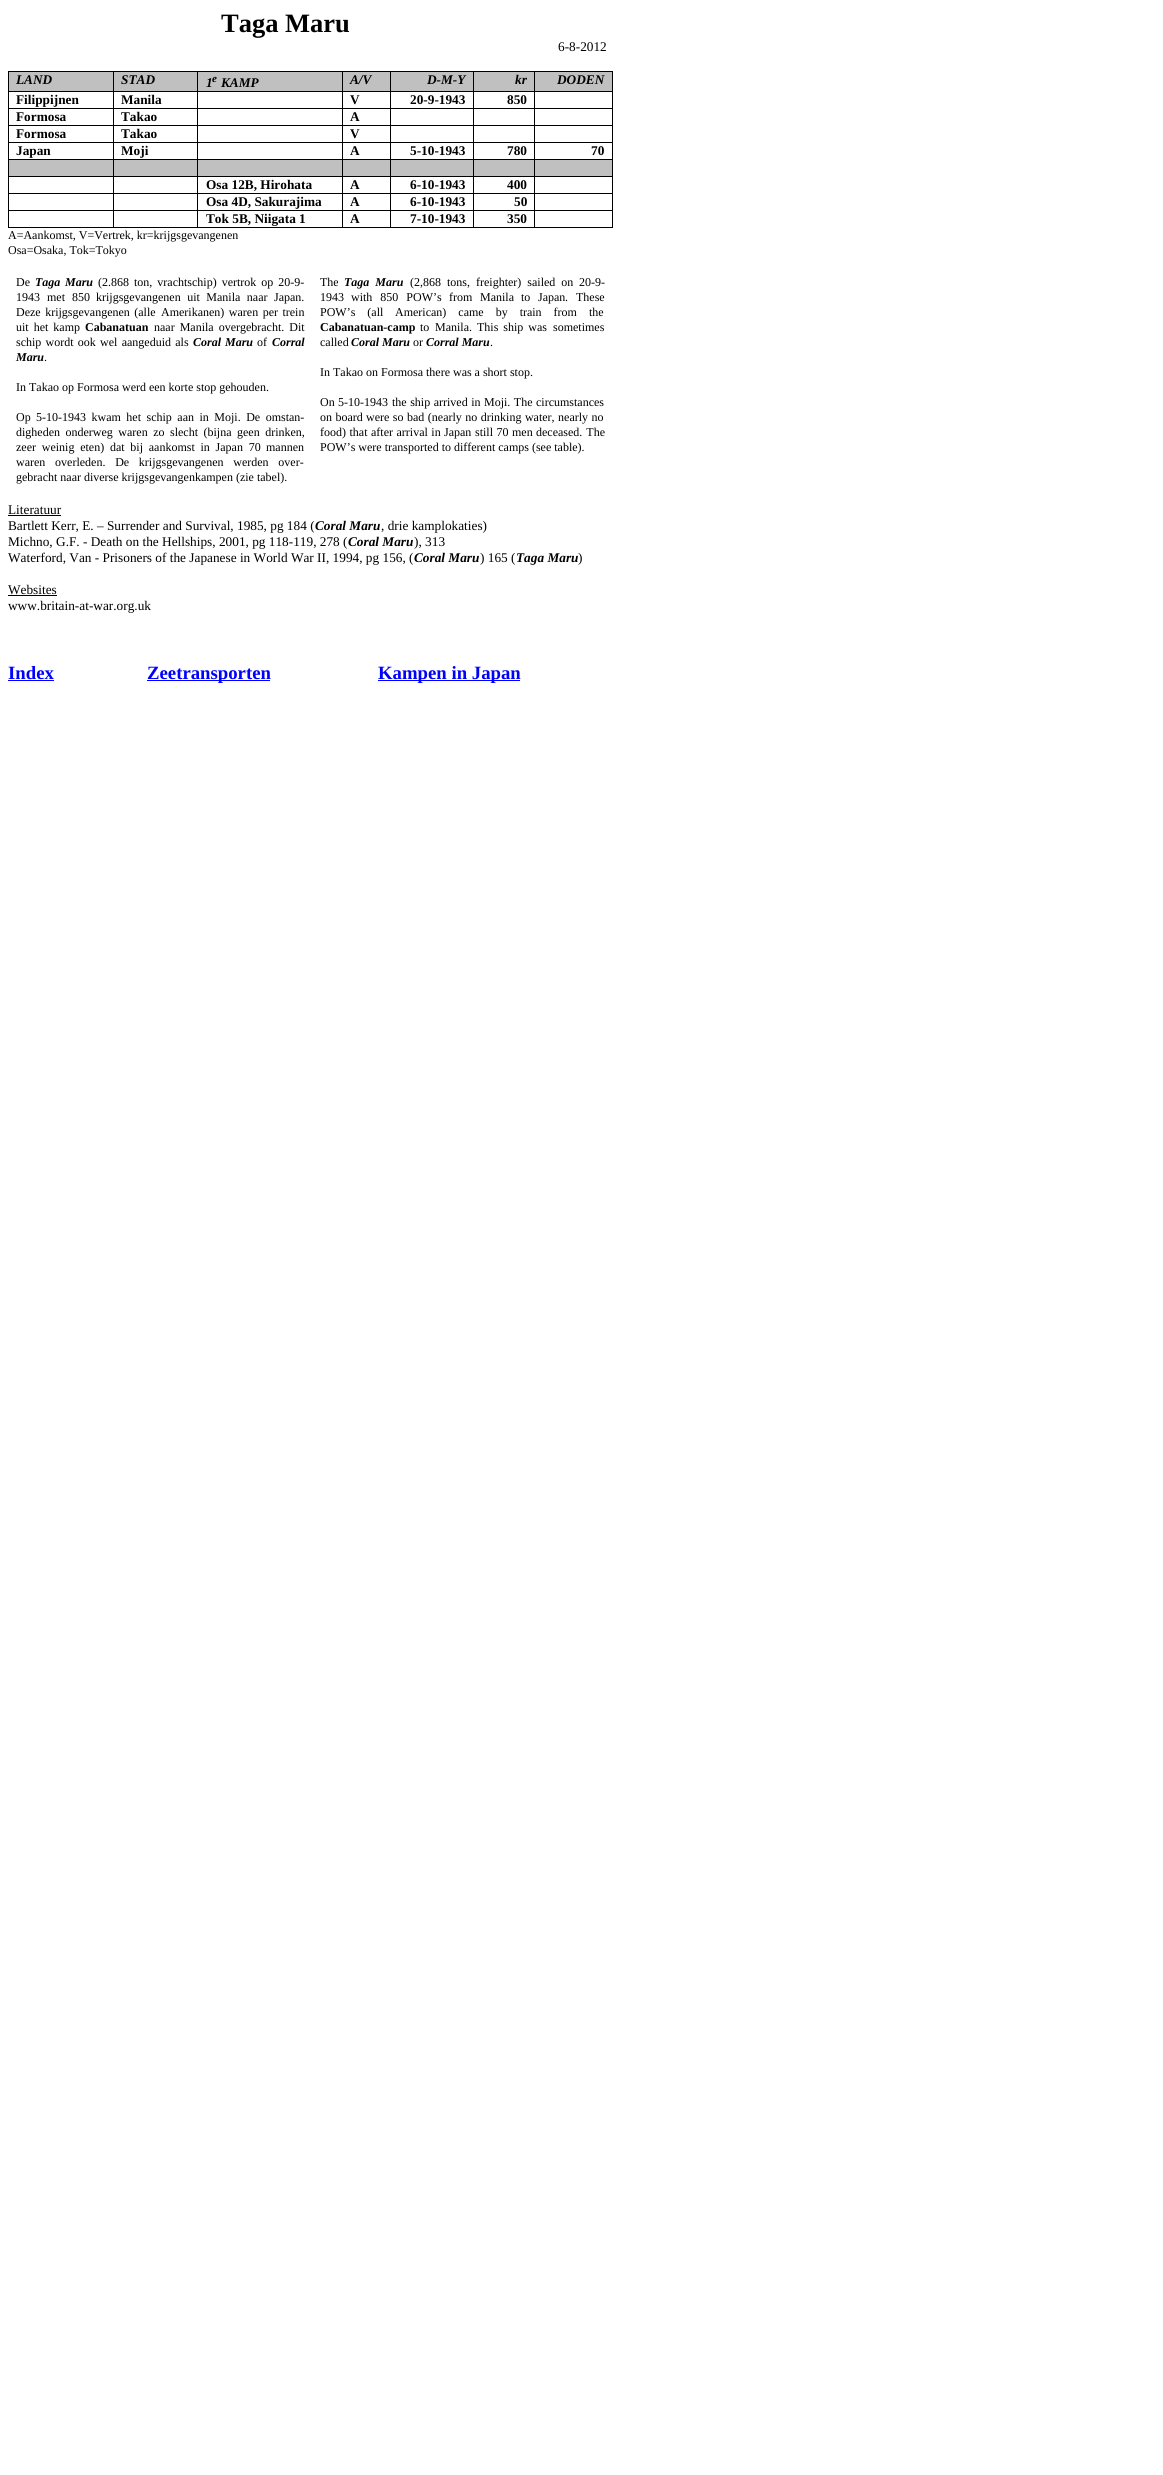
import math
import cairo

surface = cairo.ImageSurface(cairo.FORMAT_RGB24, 1163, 2475)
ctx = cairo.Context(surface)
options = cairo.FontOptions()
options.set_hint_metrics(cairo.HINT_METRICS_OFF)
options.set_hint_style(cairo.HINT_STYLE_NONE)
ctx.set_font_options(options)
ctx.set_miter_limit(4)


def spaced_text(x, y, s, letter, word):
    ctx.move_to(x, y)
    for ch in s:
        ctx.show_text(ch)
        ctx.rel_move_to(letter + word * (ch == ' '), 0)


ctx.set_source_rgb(1, 1, 1)
ctx.paint()
ctx.select_font_face("Liberation Serif", cairo.FONT_SLANT_NORMAL, cairo.FONT_WEIGHT_BOLD)
ctx.set_font_size(26.5)
ctx.set_source_rgb(0, 0, 0)
ctx.move_to(221, 32)
ctx.show_text("Taga Maru")
ctx.select_font_face("Liberation Serif")
ctx.set_font_size(13.3)
ctx.move_to(558, 51)
ctx.show_text("6-8-2012")
ctx.set_source_rgb(0.753, 0.753, 0.753)
ctx.rectangle(9, 72, 104, 19)
ctx.fill()
ctx.set_source_rgb(0, 0, 0)
ctx.rectangle(8, 71, 605, 1)
ctx.fill()
ctx.rectangle(612, 91, 1, 137)
ctx.fill()
ctx.rectangle(612, 71, 1, 21)
ctx.fill()
ctx.rectangle(534, 227, 79, 1)
ctx.fill()
ctx.rectangle(534, 210, 1, 18)
ctx.fill()
ctx.rectangle(534, 210, 79, 1)
ctx.fill()
ctx.rectangle(534, 193, 1, 18)
ctx.fill()
ctx.rectangle(534, 193, 79, 1)
ctx.fill()
ctx.rectangle(534, 176, 1, 18)
ctx.fill()
ctx.rectangle(534, 176, 79, 1)
ctx.fill()
ctx.rectangle(534, 159, 1, 18)
ctx.fill()
ctx.rectangle(534, 159, 79, 1)
ctx.fill()
ctx.rectangle(534, 142, 1, 18)
ctx.fill()
ctx.rectangle(534, 142, 79, 1)
ctx.fill()
ctx.rectangle(534, 125, 1, 18)
ctx.fill()
ctx.rectangle(534, 125, 79, 1)
ctx.fill()
ctx.rectangle(534, 108, 1, 18)
ctx.fill()
ctx.rectangle(534, 108, 79, 1)
ctx.fill()
ctx.rectangle(534, 91, 1, 18)
ctx.fill()
ctx.rectangle(534, 91, 79, 1)
ctx.fill()
ctx.rectangle(534, 71, 1, 21)
ctx.fill()
ctx.rectangle(473, 227, 62, 1)
ctx.fill()
ctx.rectangle(473, 210, 1, 18)
ctx.fill()
ctx.rectangle(473, 210, 62, 1)
ctx.fill()
ctx.rectangle(473, 193, 1, 18)
ctx.fill()
ctx.rectangle(473, 193, 62, 1)
ctx.fill()
ctx.rectangle(473, 176, 1, 18)
ctx.fill()
ctx.rectangle(473, 176, 62, 1)
ctx.fill()
ctx.rectangle(473, 159, 1, 18)
ctx.fill()
ctx.rectangle(473, 159, 62, 1)
ctx.fill()
ctx.rectangle(473, 142, 1, 18)
ctx.fill()
ctx.rectangle(473, 142, 62, 1)
ctx.fill()
ctx.rectangle(473, 125, 1, 18)
ctx.fill()
ctx.rectangle(473, 125, 62, 1)
ctx.fill()
ctx.rectangle(473, 108, 1, 18)
ctx.fill()
ctx.rectangle(473, 108, 62, 1)
ctx.fill()
ctx.rectangle(473, 91, 1, 18)
ctx.fill()
ctx.rectangle(473, 91, 62, 1)
ctx.fill()
ctx.rectangle(473, 71, 1, 21)
ctx.fill()
ctx.rectangle(390, 227, 84, 1)
ctx.fill()
ctx.rectangle(390, 210, 1, 18)
ctx.fill()
ctx.rectangle(390, 210, 84, 1)
ctx.fill()
ctx.rectangle(390, 193, 1, 18)
ctx.fill()
ctx.rectangle(390, 193, 84, 1)
ctx.fill()
ctx.rectangle(390, 176, 1, 18)
ctx.fill()
ctx.rectangle(390, 176, 84, 1)
ctx.fill()
ctx.rectangle(390, 159, 1, 18)
ctx.fill()
ctx.rectangle(390, 159, 84, 1)
ctx.fill()
ctx.rectangle(390, 142, 1, 18)
ctx.fill()
ctx.rectangle(390, 142, 84, 1)
ctx.fill()
ctx.rectangle(390, 125, 1, 18)
ctx.fill()
ctx.rectangle(390, 125, 84, 1)
ctx.fill()
ctx.rectangle(390, 108, 1, 18)
ctx.fill()
ctx.rectangle(390, 108, 84, 1)
ctx.fill()
ctx.rectangle(390, 91, 1, 18)
ctx.fill()
ctx.rectangle(390, 91, 84, 1)
ctx.fill()
ctx.rectangle(390, 71, 1, 21)
ctx.fill()
ctx.rectangle(342, 227, 49, 1)
ctx.fill()
ctx.rectangle(342, 210, 1, 18)
ctx.fill()
ctx.rectangle(342, 210, 49, 1)
ctx.fill()
ctx.rectangle(342, 193, 1, 18)
ctx.fill()
ctx.rectangle(342, 193, 49, 1)
ctx.fill()
ctx.rectangle(342, 176, 1, 18)
ctx.fill()
ctx.rectangle(342, 176, 49, 1)
ctx.fill()
ctx.rectangle(342, 159, 1, 18)
ctx.fill()
ctx.rectangle(342, 159, 49, 1)
ctx.fill()
ctx.rectangle(342, 142, 1, 18)
ctx.fill()
ctx.rectangle(342, 142, 49, 1)
ctx.fill()
ctx.rectangle(342, 125, 1, 18)
ctx.fill()
ctx.rectangle(342, 125, 49, 1)
ctx.fill()
ctx.rectangle(342, 108, 1, 18)
ctx.fill()
ctx.rectangle(342, 108, 49, 1)
ctx.fill()
ctx.rectangle(342, 91, 1, 18)
ctx.fill()
ctx.rectangle(342, 91, 49, 1)
ctx.fill()
ctx.rectangle(342, 71, 1, 21)
ctx.fill()
ctx.rectangle(197, 227, 146, 1)
ctx.fill()
ctx.rectangle(197, 210, 1, 18)
ctx.fill()
ctx.rectangle(197, 210, 146, 1)
ctx.fill()
ctx.rectangle(197, 193, 1, 18)
ctx.fill()
ctx.rectangle(197, 193, 146, 1)
ctx.fill()
ctx.rectangle(197, 176, 1, 18)
ctx.fill()
ctx.rectangle(197, 176, 146, 1)
ctx.fill()
ctx.rectangle(197, 159, 1, 18)
ctx.fill()
ctx.rectangle(197, 159, 146, 1)
ctx.fill()
ctx.rectangle(197, 142, 1, 18)
ctx.fill()
ctx.rectangle(197, 142, 146, 1)
ctx.fill()
ctx.rectangle(197, 125, 1, 18)
ctx.fill()
ctx.rectangle(197, 125, 146, 1)
ctx.fill()
ctx.rectangle(197, 108, 1, 18)
ctx.fill()
ctx.rectangle(197, 108, 146, 1)
ctx.fill()
ctx.rectangle(197, 91, 1, 18)
ctx.fill()
ctx.rectangle(197, 91, 146, 1)
ctx.fill()
ctx.rectangle(197, 71, 1, 21)
ctx.fill()
ctx.rectangle(113, 227, 85, 1)
ctx.fill()
ctx.rectangle(113, 210, 1, 18)
ctx.fill()
ctx.rectangle(113, 210, 85, 1)
ctx.fill()
ctx.rectangle(113, 193, 1, 18)
ctx.fill()
ctx.rectangle(113, 193, 85, 1)
ctx.fill()
ctx.rectangle(113, 176, 1, 18)
ctx.fill()
ctx.rectangle(113, 176, 85, 1)
ctx.fill()
ctx.rectangle(113, 159, 1, 18)
ctx.fill()
ctx.rectangle(113, 159, 85, 1)
ctx.fill()
ctx.rectangle(113, 142, 1, 18)
ctx.fill()
ctx.rectangle(113, 142, 85, 1)
ctx.fill()
ctx.rectangle(113, 125, 1, 18)
ctx.fill()
ctx.rectangle(113, 125, 85, 1)
ctx.fill()
ctx.rectangle(113, 108, 1, 18)
ctx.fill()
ctx.rectangle(113, 108, 85, 1)
ctx.fill()
ctx.rectangle(113, 91, 1, 18)
ctx.fill()
ctx.rectangle(113, 91, 85, 1)
ctx.fill()
ctx.rectangle(113, 71, 1, 21)
ctx.fill()
ctx.rectangle(8, 227, 106, 1)
ctx.fill()
ctx.rectangle(8, 210, 1, 18)
ctx.fill()
ctx.rectangle(8, 210, 106, 1)
ctx.fill()
ctx.rectangle(8, 193, 1, 18)
ctx.fill()
ctx.rectangle(8, 193, 106, 1)
ctx.fill()
ctx.rectangle(8, 176, 1, 18)
ctx.fill()
ctx.rectangle(8, 176, 106, 1)
ctx.fill()
ctx.rectangle(8, 159, 1, 18)
ctx.fill()
ctx.rectangle(8, 159, 106, 1)
ctx.fill()
ctx.rectangle(8, 142, 1, 18)
ctx.fill()
ctx.rectangle(8, 142, 106, 1)
ctx.fill()
ctx.rectangle(8, 125, 1, 18)
ctx.fill()
ctx.rectangle(8, 125, 106, 1)
ctx.fill()
ctx.rectangle(8, 108, 1, 18)
ctx.fill()
ctx.rectangle(8, 108, 106, 1)
ctx.fill()
ctx.rectangle(8, 91, 1, 18)
ctx.fill()
ctx.rectangle(8, 91, 106, 1)
ctx.fill()
ctx.rectangle(8, 71, 1, 21)
ctx.fill()
ctx.select_font_face("Liberation Serif", cairo.FONT_SLANT_ITALIC, cairo.FONT_WEIGHT_BOLD)
ctx.move_to(16, 84)
ctx.show_text("LAND")
ctx.set_source_rgb(0.753, 0.753, 0.753)
ctx.rectangle(114, 72, 83, 19)
ctx.fill()
ctx.set_source_rgb(0, 0, 0)
ctx.move_to(121, 84)
ctx.show_text("STAD")
ctx.set_source_rgb(0.753, 0.753, 0.753)
ctx.rectangle(198, 72, 144, 19)
ctx.fill()
ctx.set_source_rgb(0, 0, 0)
ctx.move_to(206, 87)
ctx.show_text("1")
ctx.set_font_size(11)
ctx.move_to(212, 82)
ctx.show_text("e")
ctx.set_font_size(13.3)
ctx.move_to(221, 87)
ctx.show_text("KAMP")
ctx.set_source_rgb(0.753, 0.753, 0.753)
ctx.rectangle(343, 72, 47, 19)
ctx.fill()
ctx.set_source_rgb(0, 0, 0)
ctx.move_to(350, 84)
ctx.show_text("A/V")
ctx.set_source_rgb(0.753, 0.753, 0.753)
ctx.rectangle(391, 72, 82, 19)
ctx.fill()
ctx.set_source_rgb(0, 0, 0)
ctx.move_to(427, 84)
ctx.show_text("D-M-Y")
ctx.set_source_rgb(0.753, 0.753, 0.753)
ctx.rectangle(474, 72, 60, 19)
ctx.fill()
ctx.set_source_rgb(0, 0, 0)
ctx.move_to(515, 84)
ctx.show_text("kr")
ctx.set_source_rgb(0.753, 0.753, 0.753)
ctx.rectangle(535, 72, 77, 19)
ctx.fill()
ctx.set_source_rgb(0, 0, 0)
ctx.move_to(557, 84)
ctx.show_text("DODEN")
ctx.select_font_face("Liberation Serif", cairo.FONT_SLANT_NORMAL, cairo.FONT_WEIGHT_BOLD)
ctx.move_to(16, 104)
ctx.show_text("Filippijnen")
ctx.move_to(121, 104)
ctx.show_text("Manila")
ctx.move_to(350, 104)
ctx.show_text("V")
ctx.move_to(410, 104)
ctx.show_text("20-9-1943")
ctx.move_to(507, 104)
ctx.show_text("850")
ctx.move_to(16, 121)
ctx.show_text("Formosa")
ctx.move_to(121, 121)
ctx.show_text("Takao")
ctx.move_to(350, 121)
ctx.show_text("A")
ctx.move_to(16, 138)
ctx.show_text("Formosa")
ctx.move_to(121, 138)
ctx.show_text("Takao")
ctx.move_to(350, 138)
ctx.show_text("V")
ctx.move_to(16, 155)
ctx.show_text("Japan")
ctx.move_to(121, 155)
ctx.show_text("Moji")
ctx.move_to(350, 155)
ctx.show_text("A")
ctx.move_to(410, 155)
ctx.show_text("5-10-1943")
ctx.move_to(507, 155)
ctx.show_text("780")
ctx.move_to(591, 155)
ctx.show_text("70")
ctx.set_source_rgb(0.753, 0.753, 0.753)
ctx.rectangle(9, 160, 104, 16)
ctx.fill()
ctx.rectangle(114, 160, 83, 16)
ctx.fill()
ctx.rectangle(198, 160, 144, 16)
ctx.fill()
ctx.rectangle(343, 160, 47, 16)
ctx.fill()
ctx.rectangle(391, 160, 82, 16)
ctx.fill()
ctx.rectangle(474, 160, 60, 16)
ctx.fill()
ctx.rectangle(535, 160, 77, 16)
ctx.fill()
ctx.set_source_rgb(0, 0, 0)
ctx.move_to(206, 189)
ctx.show_text("Osa 12B, Hirohata")
ctx.move_to(350, 189)
ctx.show_text("A")
ctx.move_to(410, 189)
ctx.show_text("6-10-1943")
ctx.move_to(507, 189)
ctx.show_text("400")
ctx.move_to(206, 206)
ctx.show_text("Osa 4D, Sakurajima")
ctx.move_to(350, 206)
ctx.show_text("A")
ctx.move_to(410, 206)
ctx.show_text("6-10-1943")
ctx.move_to(514, 206)
ctx.show_text("50")
ctx.move_to(206, 223)
ctx.show_text("Tok 5B, Niigata 1")
ctx.move_to(350, 223)
ctx.show_text("A")
ctx.move_to(410, 223)
ctx.show_text("7-10-1943")
ctx.move_to(507, 223)
ctx.show_text("350")
ctx.select_font_face("Liberation Serif")
ctx.set_font_size(12)
ctx.move_to(8, 239)
ctx.show_text("A=Aankomst, V=Vertrek, kr=krijgsgevangenen")
ctx.move_to(8, 254)
ctx.show_text("Osa=Osaka, Tok=Tokyo")
ctx.move_to(16, 286)
ctx.show_text("De")
ctx.select_font_face("Liberation Serif", cairo.FONT_SLANT_ITALIC, cairo.FONT_WEIGHT_BOLD)
ctx.move_to(35, 286)
ctx.show_text("Taga")
ctx.move_to(65, 286)
ctx.show_text("Maru")
ctx.select_font_face("Liberation Serif")
spaced_text(98, 286, "(2.868 ton, vrachtschip) vertrok op 20-9-", 0, 2)
spaced_text(16, 301, "1943 met 850", 0, 4)
spaced_text(96, 301, "krijgsgevangenen uit Manila naar Japan.", 0, 3.5)
spaced_text(16, 316, "Deze krijgsgevangenen (alle", 0, 1.5)
spaced_text(161, 316, "Amerikanen) waren per trein", 0, 1.5)
spaced_text(16, 331, "uit het kamp", 0, 2)
ctx.select_font_face("Liberation Serif", cairo.FONT_SLANT_NORMAL, cairo.FONT_WEIGHT_BOLD)
ctx.move_to(85, 331)
ctx.show_text("Cabanatuan")
ctx.select_font_face("Liberation Serif")
spaced_text(154, 331, "naar Manila overgebracht. Dit", 0, 2)
spaced_text(16, 346, "schip wordt ook wel aangeduid als", 0, 1.25)
ctx.select_font_face("Liberation Serif", cairo.FONT_SLANT_ITALIC, cairo.FONT_WEIGHT_BOLD)
ctx.move_to(193, 346)
ctx.show_text("Coral")
ctx.move_to(225, 346)
ctx.show_text("Maru")
ctx.select_font_face("Liberation Serif")
ctx.move_to(257, 346)
ctx.show_text("of")
ctx.select_font_face("Liberation Serif", cairo.FONT_SLANT_ITALIC, cairo.FONT_WEIGHT_BOLD)
ctx.move_to(272, 346)
ctx.show_text("Corral")
ctx.move_to(16, 361)
ctx.show_text("Maru")
ctx.select_font_face("Liberation Serif")
ctx.move_to(44, 361)
ctx.show_text(".")
ctx.move_to(16, 391)
ctx.show_text("In Takao op Formosa werd een korte stop gehouden.")
ctx.move_to(16, 421)
ctx.show_text("Op")
spaced_text(36, 421, "5-10-1943 kwam het schip aan in Moji. De omstan-", 0, 2.5)
spaced_text(16, 436, "digheden onderweg waren zo", 0, 2.5)
spaced_text(170, 436, "slecht (bijna geen drinken,", 0, 2.5)
spaced_text(16, 451, "zeer weinig eten) dat bij aankomst in Japan 70", 0, 2.75)
ctx.move_to(266, 451)
ctx.show_text("mannen")
spaced_text(16, 466, "waren overleden. De krijgsgevangenen werden over-", 0, 6.75)
ctx.move_to(16, 481)
ctx.show_text("gebracht naar diverse krijgsgevangenkampen (zie tabel).")
ctx.move_to(320, 286)
ctx.show_text("The")
ctx.select_font_face("Liberation Serif", cairo.FONT_SLANT_ITALIC, cairo.FONT_WEIGHT_BOLD)
spaced_text(344, 286, "Taga Maru", 0, 3)
ctx.select_font_face("Liberation Serif")
spaced_text(410, 286, "(2,868 tons, freighter) sailed on", 0, 3)
ctx.move_to(579, 286)
ctx.show_text("20-9-")
ctx.move_to(320, 301)
ctx.show_text("1943")
spaced_text(351, 301, "with 850 POW’s", 0, 5)
ctx.move_to(449, 301)
ctx.show_text("from")
ctx.move_to(480, 301)
ctx.show_text("Manila")
ctx.move_to(521, 301)
ctx.show_text("to")
ctx.move_to(538, 301)
ctx.show_text("Japan")
spaced_text(565, 301, ". These", 0, 5)
spaced_text(320, 316, "POW’s (all", 0, 9)
spaced_text(395, 316, "American) came by train from the", 0, 9)
ctx.select_font_face("Liberation Serif", cairo.FONT_SLANT_NORMAL, cairo.FONT_WEIGHT_BOLD)
ctx.move_to(320, 331)
ctx.show_text("Cabanatuan-camp")
ctx.select_font_face("Liberation Serif")
ctx.move_to(420, 331)
ctx.show_text("to")
ctx.move_to(435, 331)
ctx.show_text("Manila")
spaced_text(469, 331, ". This ship was", 0, 2)
ctx.move_to(553, 331)
ctx.show_text("sometimes")
ctx.move_to(320, 346)
ctx.show_text("called")
ctx.select_font_face("Liberation Serif", cairo.FONT_SLANT_ITALIC, cairo.FONT_WEIGHT_BOLD)
ctx.move_to(351, 346)
ctx.show_text("Coral Maru")
ctx.select_font_face("Liberation Serif")
ctx.move_to(413, 346)
ctx.show_text("or")
ctx.select_font_face("Liberation Serif", cairo.FONT_SLANT_ITALIC, cairo.FONT_WEIGHT_BOLD)
ctx.move_to(426, 346)
ctx.show_text("Corral Maru")
ctx.select_font_face("Liberation Serif")
ctx.move_to(490, 346)
ctx.show_text(".")
ctx.move_to(320, 376)
ctx.show_text("In Takao on Formosa there was a short stop.")
ctx.move_to(320, 406)
ctx.show_text("On")
ctx.move_to(338, 406)
ctx.show_text("5-10-1943")
spaced_text(392, 406, "the ship arrived in Moji. The circumstances", 0, 0.5)
spaced_text(320, 421, "on board", 0, 0.5)
spaced_text(366, 421, "were so bad (nearly no drinking water, nearly no", 0, 0.5)
spaced_text(320, 436, "food) that after arrival in", 0, 0.5)
ctx.move_to(444, 436)
ctx.show_text("Japan")
spaced_text(475, 436, "still 70 men", 0, 0.5)
spaced_text(536, 436, "deceased. The", 0, 1)
ctx.move_to(320, 451)
ctx.show_text("POW’s were transported to different camps (see table).")
ctx.set_font_size(13.3)
ctx.move_to(8, 514)
ctx.show_text("Literatuur")
ctx.rectangle(8, 515, 53, 1)
ctx.fill()
ctx.move_to(8, 530)
ctx.show_text("Bartlett Kerr, E. – Surrender and Survival, 1985, pg 184 (")
ctx.select_font_face("Liberation Serif", cairo.FONT_SLANT_ITALIC, cairo.FONT_WEIGHT_BOLD)
ctx.move_to(315, 530)
ctx.show_text("Coral Maru")
ctx.select_font_face("Liberation Serif")
ctx.move_to(381, 530)
ctx.show_text(", drie kamplokaties)")
ctx.move_to(8, 546)
ctx.show_text("Michno, G.F. - Death on the Hellships, 2001, pg 118-119, 278 (")
ctx.select_font_face("Liberation Serif", cairo.FONT_SLANT_ITALIC, cairo.FONT_WEIGHT_BOLD)
ctx.move_to(348, 546)
ctx.show_text("Coral Maru")
ctx.select_font_face("Liberation Serif")
ctx.move_to(414, 546)
ctx.show_text("), 313")
ctx.move_to(8, 562)
ctx.show_text("Waterford, Van - Prisoners of the Japanese in World War II, 1994, pg 156, (")
ctx.select_font_face("Liberation Serif", cairo.FONT_SLANT_ITALIC, cairo.FONT_WEIGHT_BOLD)
ctx.move_to(414, 562)
ctx.show_text("Coral Maru")
ctx.select_font_face("Liberation Serif")
ctx.move_to(480, 562)
ctx.show_text(") 165 (")
ctx.select_font_face("Liberation Serif", cairo.FONT_SLANT_ITALIC, cairo.FONT_WEIGHT_BOLD)
ctx.move_to(516, 562)
ctx.show_text("Taga Maru")
ctx.select_font_face("Liberation Serif")
ctx.move_to(578, 562)
ctx.show_text(")")
ctx.move_to(8, 594)
ctx.show_text("Websites")
ctx.rectangle(8, 595, 49, 1)
ctx.fill()
ctx.move_to(8, 610)
ctx.show_text("www.britain-at-war.org.uk")
ctx.select_font_face("Liberation Serif", cairo.FONT_SLANT_NORMAL, cairo.FONT_WEIGHT_BOLD)
ctx.set_font_size(18.75)
ctx.set_source_rgb(0, 0, 1)
ctx.move_to(8, 679)
ctx.show_text("Index")
ctx.rectangle(8, 680, 46, 1)
ctx.fill()
ctx.rectangle(147, 680, 123, 1)
ctx.fill()
ctx.move_to(147, 679)
ctx.show_text("Zeetransporten")
ctx.rectangle(378, 680, 142, 1)
ctx.fill()
ctx.move_to(378, 679)
ctx.show_text("Kampen in Japan")
surface.write_to_png("page.png")
